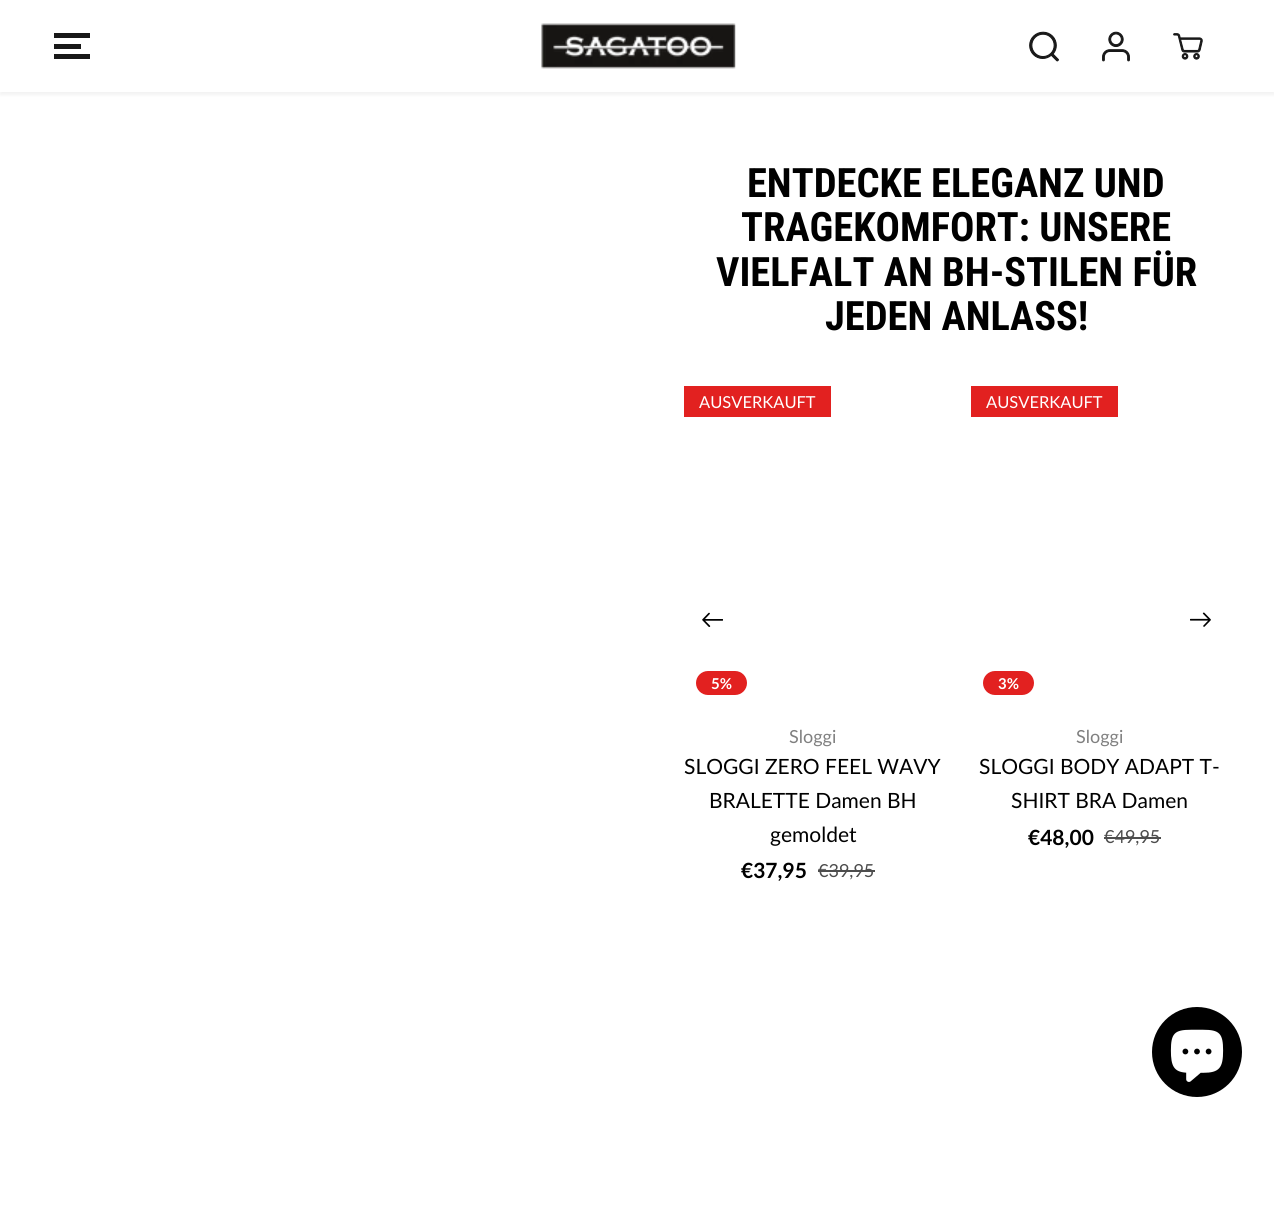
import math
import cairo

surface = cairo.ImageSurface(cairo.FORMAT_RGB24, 1274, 1224)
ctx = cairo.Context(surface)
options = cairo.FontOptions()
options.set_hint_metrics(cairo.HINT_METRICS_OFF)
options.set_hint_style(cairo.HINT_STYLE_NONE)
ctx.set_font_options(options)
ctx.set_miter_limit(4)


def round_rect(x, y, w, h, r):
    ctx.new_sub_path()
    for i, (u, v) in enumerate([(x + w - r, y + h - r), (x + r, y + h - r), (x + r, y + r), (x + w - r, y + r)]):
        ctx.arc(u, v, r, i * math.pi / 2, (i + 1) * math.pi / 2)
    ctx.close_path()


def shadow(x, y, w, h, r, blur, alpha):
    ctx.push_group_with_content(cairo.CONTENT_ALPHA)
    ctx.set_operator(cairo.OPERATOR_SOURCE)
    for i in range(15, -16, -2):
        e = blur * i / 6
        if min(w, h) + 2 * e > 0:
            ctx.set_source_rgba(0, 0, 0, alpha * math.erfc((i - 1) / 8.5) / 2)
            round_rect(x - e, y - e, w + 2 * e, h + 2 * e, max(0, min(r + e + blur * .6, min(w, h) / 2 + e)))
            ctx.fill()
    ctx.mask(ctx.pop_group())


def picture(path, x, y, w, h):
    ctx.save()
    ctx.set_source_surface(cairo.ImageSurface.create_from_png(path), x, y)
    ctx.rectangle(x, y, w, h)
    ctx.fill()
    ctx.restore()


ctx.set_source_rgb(1, 1, 1)
ctx.paint()
ctx.save()
ctx.set_fill_rule(cairo.FILL_RULE_EVEN_ODD)
ctx.new_path()
ctx.move_to(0, 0)
ctx.line_to(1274, 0)
ctx.line_to(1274, 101)
ctx.line_to(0, 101)
ctx.close_path()
ctx.move_to(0, 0)
ctx.line_to(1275, 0)
ctx.line_to(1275, 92)
ctx.line_to(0, 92)
ctx.close_path()
ctx.clip()
ctx.set_source_rgb(0, 0, 0)
shadow(0, 3, 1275, 92, 0, 1.5, 0.05)
ctx.restore()
ctx.set_source_rgb(0.094, 0.094, 0.094)
ctx.rectangle(54, 44, 27, 5)
ctx.fill()
ctx.rectangle(54, 33, 36, 5)
ctx.fill()
ctx.rectangle(54, 54, 36, 5)
ctx.fill()
picture("img1.png", 541, 23, 195, 46)
picture("img2.png", 1029, 31, 30, 31)
picture("img3.png", 1102, 31, 28, 31)
picture("img4.png", 1173, 33, 30, 27)
ctx.select_font_face("Roboto Condensed", cairo.FONT_SLANT_NORMAL, cairo.FONT_WEIGHT_BOLD)
ctx.set_font_size(40.5)
ctx.set_source_rgb(0, 0, 0)
ctx.move_to(747, 197)
ctx.show_text("ENTDECKE ELEGANZ UND")
ctx.move_to(741, 241)
ctx.show_text("TRAGEKOMFORT: UNSERE")
ctx.move_to(716, 286)
ctx.show_text("VIELFALT AN BH-STILEN FÜR")
ctx.move_to(825, 330)
ctx.show_text("JEDEN ANLASS!")
ctx.set_source_rgb(0.886, 0.129, 0.125)
ctx.rectangle(684, 386, 147, 31)
ctx.fill()
ctx.select_font_face("Lato")
ctx.set_font_size(16.5)
ctx.set_source_rgb(1, 1, 1)
ctx.move_to(699, 408)
ctx.show_text("AUSVERKAUFT")
ctx.set_source_rgb(0.886, 0.129, 0.125)
round_rect(696, 671, 51, 24, 12)
ctx.fill()
ctx.select_font_face("Lato", cairo.FONT_SLANT_NORMAL, cairo.FONT_WEIGHT_BOLD)
ctx.set_font_size(15)
ctx.set_source_rgb(1, 1, 1)
ctx.move_to(711, 689)
ctx.show_text("5%")
ctx.select_font_face("Lato")
ctx.set_font_size(18)
ctx.set_source_rgb(0.502, 0.502, 0.502)
ctx.move_to(789, 743)
ctx.show_text("Sloggi")
ctx.set_font_size(21)
ctx.set_source_rgb(0, 0, 0)
ctx.move_to(684, 774)
ctx.show_text("SLOGGI ZERO FEEL WAVY")
ctx.move_to(709, 808)
ctx.show_text("BRALETTE Damen BH")
ctx.move_to(770, 842)
ctx.show_text("gemoldet")
ctx.select_font_face("Lato", cairo.FONT_SLANT_NORMAL, cairo.FONT_WEIGHT_BOLD)
ctx.move_to(741, 878)
ctx.show_text("€37,95")
ctx.select_font_face("Lato")
ctx.set_font_size(18)
ctx.set_source_rgb(0.302, 0.302, 0.302)
ctx.move_to(818, 877)
ctx.show_text("€39,95")
ctx.rectangle(818, 870, 57, 2)
ctx.fill()
ctx.set_source_rgb(0.886, 0.129, 0.125)
ctx.rectangle(971, 386, 147, 31)
ctx.fill()
ctx.set_font_size(16.5)
ctx.set_source_rgb(1, 1, 1)
ctx.move_to(986, 408)
ctx.show_text("AUSVERKAUFT")
ctx.set_source_rgb(0.886, 0.129, 0.125)
round_rect(983, 671, 51, 24, 12)
ctx.fill()
ctx.select_font_face("Lato", cairo.FONT_SLANT_NORMAL, cairo.FONT_WEIGHT_BOLD)
ctx.set_font_size(15)
ctx.set_source_rgb(1, 1, 1)
ctx.move_to(998, 689)
ctx.show_text("3%")
ctx.select_font_face("Lato")
ctx.set_font_size(18)
ctx.set_source_rgb(0.502, 0.502, 0.502)
ctx.move_to(1076, 743)
ctx.show_text("Sloggi")
ctx.set_font_size(21)
ctx.set_source_rgb(0, 0, 0)
ctx.move_to(979, 774)
ctx.show_text("SLOGGI BODY ADAPT T-")
ctx.move_to(1011, 808)
ctx.show_text("SHIRT BRA Damen")
ctx.select_font_face("Lato", cairo.FONT_SLANT_NORMAL, cairo.FONT_WEIGHT_BOLD)
ctx.move_to(1028, 845)
ctx.show_text("€48,00")
ctx.select_font_face("Lato")
ctx.set_font_size(18)
ctx.set_source_rgb(0.302, 0.302, 0.302)
ctx.move_to(1104, 843)
ctx.show_text("€49,95")
ctx.rectangle(1104, 837, 57, 2)
ctx.fill()
picture("img5.png", 702, 612, 21, 15)
picture("img6.png", 1190, 612, 21, 15)
ctx.set_source_rgb(0, 0, 0)
ctx.arc(1197, 1052, 45, 0, 2 * math.pi)
ctx.fill()
picture("img7.png", 1170, 1029, 54, 53)
surface.write_to_png("page.png")
